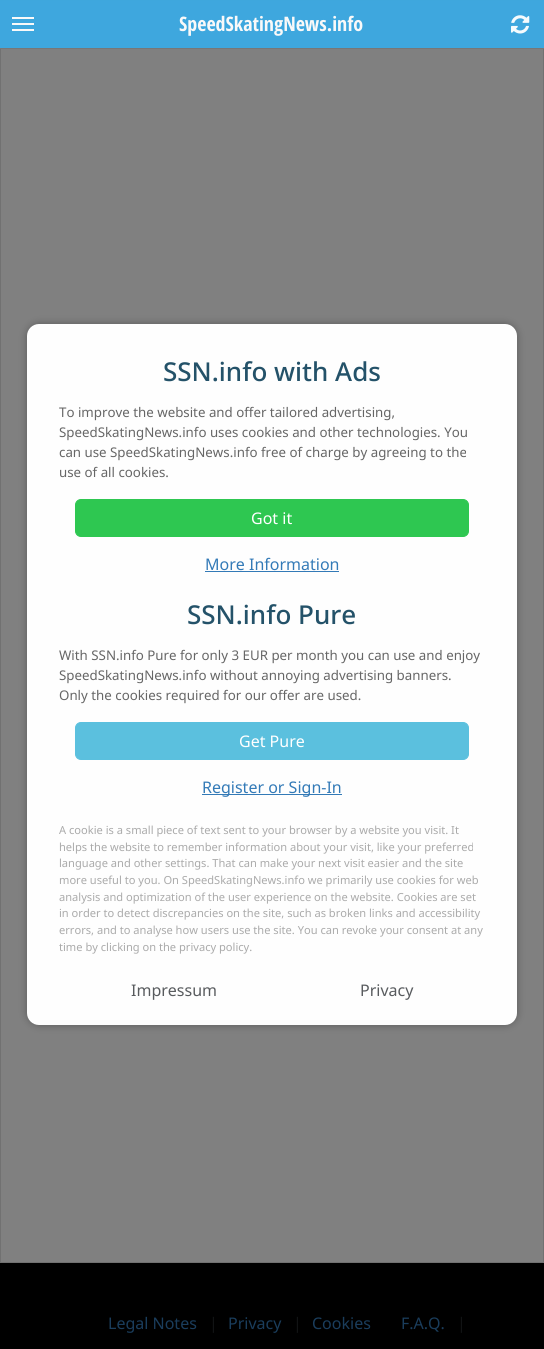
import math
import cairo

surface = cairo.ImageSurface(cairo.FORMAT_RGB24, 544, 1349)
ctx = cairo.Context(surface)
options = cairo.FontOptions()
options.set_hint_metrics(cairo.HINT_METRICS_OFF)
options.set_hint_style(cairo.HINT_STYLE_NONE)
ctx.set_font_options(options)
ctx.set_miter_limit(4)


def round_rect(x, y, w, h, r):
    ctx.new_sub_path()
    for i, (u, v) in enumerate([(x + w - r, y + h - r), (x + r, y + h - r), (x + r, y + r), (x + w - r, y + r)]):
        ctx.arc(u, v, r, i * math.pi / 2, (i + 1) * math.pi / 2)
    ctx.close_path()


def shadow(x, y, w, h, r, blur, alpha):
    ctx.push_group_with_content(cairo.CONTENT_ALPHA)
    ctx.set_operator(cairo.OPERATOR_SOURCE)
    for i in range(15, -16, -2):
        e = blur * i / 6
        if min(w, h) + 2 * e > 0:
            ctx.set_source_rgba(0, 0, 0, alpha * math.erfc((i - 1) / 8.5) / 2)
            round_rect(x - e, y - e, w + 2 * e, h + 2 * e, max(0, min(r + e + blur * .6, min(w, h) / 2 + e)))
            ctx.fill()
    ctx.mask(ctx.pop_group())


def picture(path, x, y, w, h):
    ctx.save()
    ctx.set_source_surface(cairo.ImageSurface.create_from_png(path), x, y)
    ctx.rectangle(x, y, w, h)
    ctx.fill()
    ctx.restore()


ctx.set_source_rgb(0.467, 0.467, 0.467)
ctx.paint()
ctx.set_source_rgb(0.243, 0.655, 0.871)
ctx.rectangle(0, 1, 544, 47)
ctx.fill()
ctx.set_source_rgb(0.243, 0.655, 0.867)
ctx.rectangle(0, 0, 544, 1)
ctx.fill()
ctx.set_source_rgb(0.973, 0.973, 0.973)
ctx.rectangle(12, 17, 22, 2)
ctx.fill()
ctx.rectangle(12, 23, 22, 2)
ctx.fill()
ctx.rectangle(12, 29, 22, 2)
ctx.fill()
ctx.select_font_face("Open Sans Condensed", cairo.FONT_SLANT_NORMAL, cairo.FONT_WEIGHT_BOLD)
ctx.set_font_size(20)
ctx.move_to(179, 31)
ctx.show_text("SpeedSkatingNews.info")
picture("img1.png", 511, 15, 19, 19)
ctx.set_source_rgb(0.502, 0.502, 0.502)
ctx.rectangle(1, 49, 542, 1213)
ctx.fill()
ctx.set_source_rgb(0.443, 0.443, 0.443)
ctx.rectangle(543, 49, 1, 1214)
ctx.fill()
ctx.rectangle(0, 1262, 544, 1)
ctx.fill()
ctx.rectangle(0, 49, 1, 1214)
ctx.fill()
ctx.set_source_rgb(0, 0, 0)
shadow(27, 324, 490, 701, 12, 4, 0.3)
ctx.set_source_rgb(0.996, 0.996, 0.996)
round_rect(27, 324, 490, 701, 12)
ctx.fill()
ctx.select_font_face("Noto Sans Medium")
ctx.set_font_size(26)
ctx.set_source_rgb(0.141, 0.322, 0.412)
ctx.move_to(163, 381)
ctx.show_text("SSN.info with Ads")
ctx.select_font_face("Noto Sans")
ctx.set_font_size(13.3)
ctx.set_source_rgb(0.4, 0.4, 0.4)
ctx.move_to(59, 417)
ctx.show_text("To improve the website and offer tailored advertising,")
ctx.move_to(59, 437)
ctx.show_text("SpeedSkatingNews.info uses cookies and other technologies. You")
ctx.move_to(59, 457)
ctx.show_text("can use SpeedSkatingNews.info free of charge by agreeing to the")
ctx.move_to(59, 477)
ctx.show_text("use of all cookies.")
ctx.set_source_rgb(0.18, 0.78, 0.318)
round_rect(75.5, 499.5, 393, 37, 5.5)
ctx.fill_preserve()
ctx.set_line_width(1)
ctx.stroke()
ctx.set_font_size(16)
ctx.set_source_rgb(1, 1, 1)
ctx.move_to(251, 524)
ctx.show_text("Got it")
ctx.set_source_rgb(0.2, 0.478, 0.718)
ctx.move_to(205, 570)
ctx.show_text("More Information")
ctx.rectangle(205, 571, 134, 1)
ctx.fill()
ctx.select_font_face("Noto Sans Medium")
ctx.set_font_size(26)
ctx.set_source_rgb(0.141, 0.322, 0.412)
ctx.move_to(187, 624)
ctx.show_text("SSN.info Pure")
ctx.select_font_face("Noto Sans")
ctx.set_font_size(13.3)
ctx.set_source_rgb(0.4, 0.4, 0.4)
ctx.move_to(59, 660)
ctx.show_text("With SSN.info Pure for only 3 EUR per month you can use and enjoy")
ctx.move_to(59, 680)
ctx.show_text("SpeedSkatingNews.info without annoying advertising banners.")
ctx.move_to(59, 700)
ctx.show_text("Only the cookies required for our offer are used.")
ctx.set_source_rgb(0.357, 0.753, 0.871)
round_rect(75.5, 722.5, 393, 37, 5.5)
ctx.fill_preserve()
ctx.stroke()
ctx.set_font_size(16)
ctx.set_source_rgb(1, 1, 1)
ctx.move_to(239, 747)
ctx.show_text("Get Pure")
ctx.set_source_rgb(0.2, 0.478, 0.718)
ctx.rectangle(202, 794, 140, 1)
ctx.fill()
ctx.move_to(202, 793)
ctx.show_text("Register or Sign-In")
ctx.set_font_size(11.1)
ctx.set_source_rgb(0.667, 0.667, 0.667)
ctx.move_to(59, 834)
ctx.show_text("A cookie is a small piece of text sent to your browser by a website you visit. It")
ctx.move_to(59, 851)
ctx.show_text("helps the website to remember information about your visit, like your preferred")
ctx.move_to(59, 867)
ctx.show_text("language and other settings. That can make your next visit easier and the site")
ctx.move_to(59, 884)
ctx.show_text("more useful to you. On SpeedSkatingNews.info we primarily use cookies for web")
ctx.move_to(59, 901)
ctx.show_text("analysis and optimization of the user experience on the website. Cookies are set")
ctx.move_to(59, 917)
ctx.show_text("in order to detect discrepancies on the site, such as broken links and accessibility")
ctx.move_to(59, 934)
ctx.show_text("errors, and to analyse how users use the site. You can revoke your consent at any")
ctx.move_to(59, 951)
ctx.show_text("time by clicking on the privacy policy.")
ctx.set_font_size(16)
ctx.set_source_rgb(0.345, 0.357, 0.369)
ctx.move_to(131, 996)
ctx.show_text("Impressum")
ctx.move_to(360, 996)
ctx.show_text("Privacy")
ctx.set_source_rgb(0, 0, 0)
ctx.rectangle(0, 1263, 544, 86)
ctx.fill()
ctx.set_source_rgb(0.102, 0.239, 0.361)
ctx.move_to(108, 1329)
ctx.show_text("Legal Notes")
ctx.set_source_rgb(0.067, 0.075, 0.082)
ctx.move_to(209, 1329)
ctx.show_text("|")
ctx.set_source_rgb(0.102, 0.239, 0.361)
ctx.move_to(228, 1329)
ctx.show_text("Privacy")
ctx.set_source_rgb(0.067, 0.075, 0.082)
ctx.move_to(293, 1329)
ctx.show_text("|")
ctx.set_source_rgb(0.102, 0.239, 0.361)
ctx.move_to(312, 1329)
ctx.show_text("Cookies")
ctx.move_to(401, 1329)
ctx.show_text("F.A.Q.")
ctx.set_source_rgb(0.067, 0.075, 0.082)
ctx.move_to(457, 1329)
ctx.show_text("|")
surface.write_to_png("page.png")
